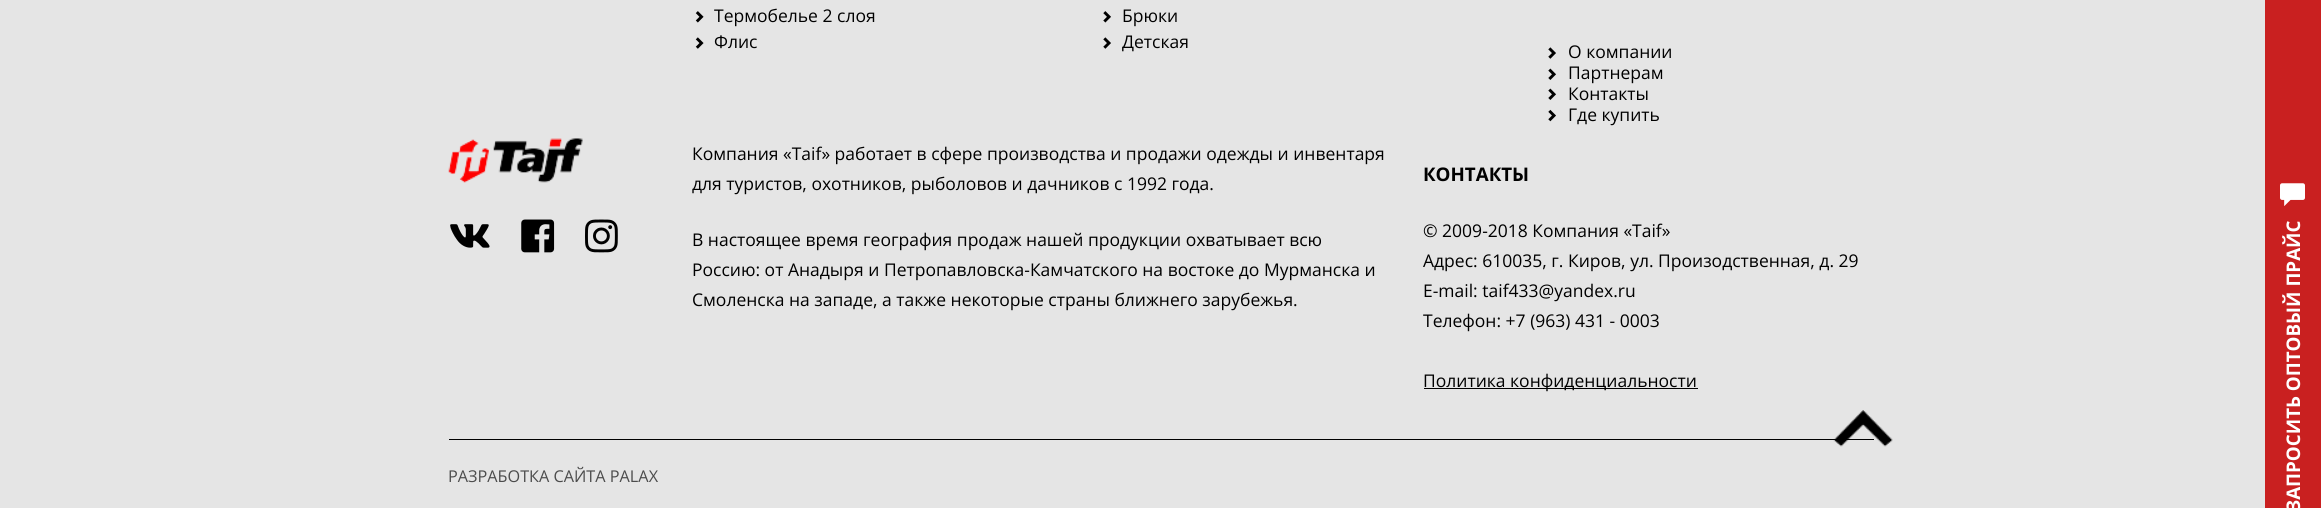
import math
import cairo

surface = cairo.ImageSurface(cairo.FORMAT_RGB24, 2321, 508)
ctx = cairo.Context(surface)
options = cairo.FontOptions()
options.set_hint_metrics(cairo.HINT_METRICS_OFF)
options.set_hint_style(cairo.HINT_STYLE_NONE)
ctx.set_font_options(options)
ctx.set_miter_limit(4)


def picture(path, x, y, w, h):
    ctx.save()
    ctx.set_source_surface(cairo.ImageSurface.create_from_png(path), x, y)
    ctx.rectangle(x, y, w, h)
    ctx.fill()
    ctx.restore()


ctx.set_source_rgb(0.898, 0.898, 0.898)
ctx.paint()
picture("img1.png", 695, 11, 9, 12)
ctx.select_font_face("Open Sans")
ctx.set_font_size(17.5)
ctx.set_source_rgb(0, 0, 0)
ctx.move_to(714, 22)
ctx.show_text("Термобелье 2 слоя")
picture("img2.png", 1103, 11, 8, 12)
ctx.move_to(1122, 22)
ctx.show_text("Брюки")
picture("img3.png", 695, 37, 9, 12)
ctx.move_to(714, 48)
ctx.show_text("Флис")
picture("img4.png", 1103, 37, 8, 12)
ctx.move_to(1122, 48)
ctx.show_text("Детская")
picture("img4.png", 1548, 47, 8, 12)
ctx.move_to(1568, 58)
ctx.show_text("О компании")
picture("img5.png", 1548, 68, 8, 12)
ctx.move_to(1568, 79)
ctx.show_text("Партнерам")
picture("img5.png", 1548, 88, 8, 12)
ctx.move_to(1568, 100)
ctx.show_text("Контакты")
picture("img6.png", 1548, 109, 8, 13)
ctx.move_to(1568, 121)
ctx.show_text("Где купить")
picture("img7.png", 448, 138, 135, 45)
picture("img8.png", 450, 224, 40, 24)
picture("img9.png", 521, 219, 34, 34)
picture("img10.png", 585, 219, 33, 34)
ctx.move_to(692, 160)
ctx.show_text("Компания «Taif» работает в сфере производства и продажи одежды и инвентаря")
ctx.move_to(692, 190)
ctx.show_text("для туристов, охотников, рыболовов и дачников с 1992 года.")
ctx.move_to(692, 246)
ctx.show_text("В настоящее время география продаж нашей продукции охватывает всю")
ctx.move_to(692, 276)
ctx.show_text("Россию: от Анадыря и Петропавловска-Камчатского на востоке до Мурманска и")
ctx.move_to(692, 306)
ctx.show_text("Смоленска на западе, а также некоторые страны ближнего зарубежья.")
ctx.select_font_face("Open Sans", cairo.FONT_SLANT_NORMAL, cairo.FONT_WEIGHT_BOLD)
ctx.set_font_size(18.75)
ctx.move_to(1423, 181)
ctx.show_text("КОНТАКТЫ")
ctx.select_font_face("Open Sans")
ctx.set_font_size(17.5)
ctx.move_to(1423, 237)
ctx.show_text("© 2009-2018 Компания «Taif»")
ctx.move_to(1423, 267)
ctx.show_text("Адрес: 610035, г. Киров, ул. Произодственная, д. 29")
ctx.move_to(1423, 297)
ctx.show_text("E-mail: taif433@yandex.ru")
ctx.move_to(1423, 327)
ctx.show_text("Телефон: +7 (963) 431 - 0003")
ctx.rectangle(1424, 388, 274, 1)
ctx.fill()
ctx.move_to(1423, 387)
ctx.show_text("Политика конфиденциальности")
ctx.rectangle(449, 439, 1425, 1)
ctx.fill()
ctx.set_font_size(16.25)
ctx.set_source_rgb(0.298, 0.298, 0.298)
ctx.move_to(448, 482)
ctx.show_text("РАЗРАБОТКА САЙТА PALAX")
ctx.set_source_rgb(0.788, 0.125, 0.125)
ctx.rectangle(2265, 0, 56, 508)
ctx.fill()
picture("img11.png", 1833, 410, 60, 37)
picture("img12.png", 2280, 183, 25, 23)
ctx.select_font_face("Open Sans", cairo.FONT_SLANT_NORMAL, cairo.FONT_WEIGHT_BOLD)
ctx.set_font_size(18.75)
ctx.set_source_rgb(1, 1, 1)
ctx.save()
ctx.translate(2300, 512)
ctx.rotate(-90 * math.pi / 180)
ctx.move_to(0, 0)
ctx.show_text("ЗАПРОСИТЬ ОПТОВЫЙ ПРАЙС")
ctx.restore()
surface.write_to_png("page.png")
